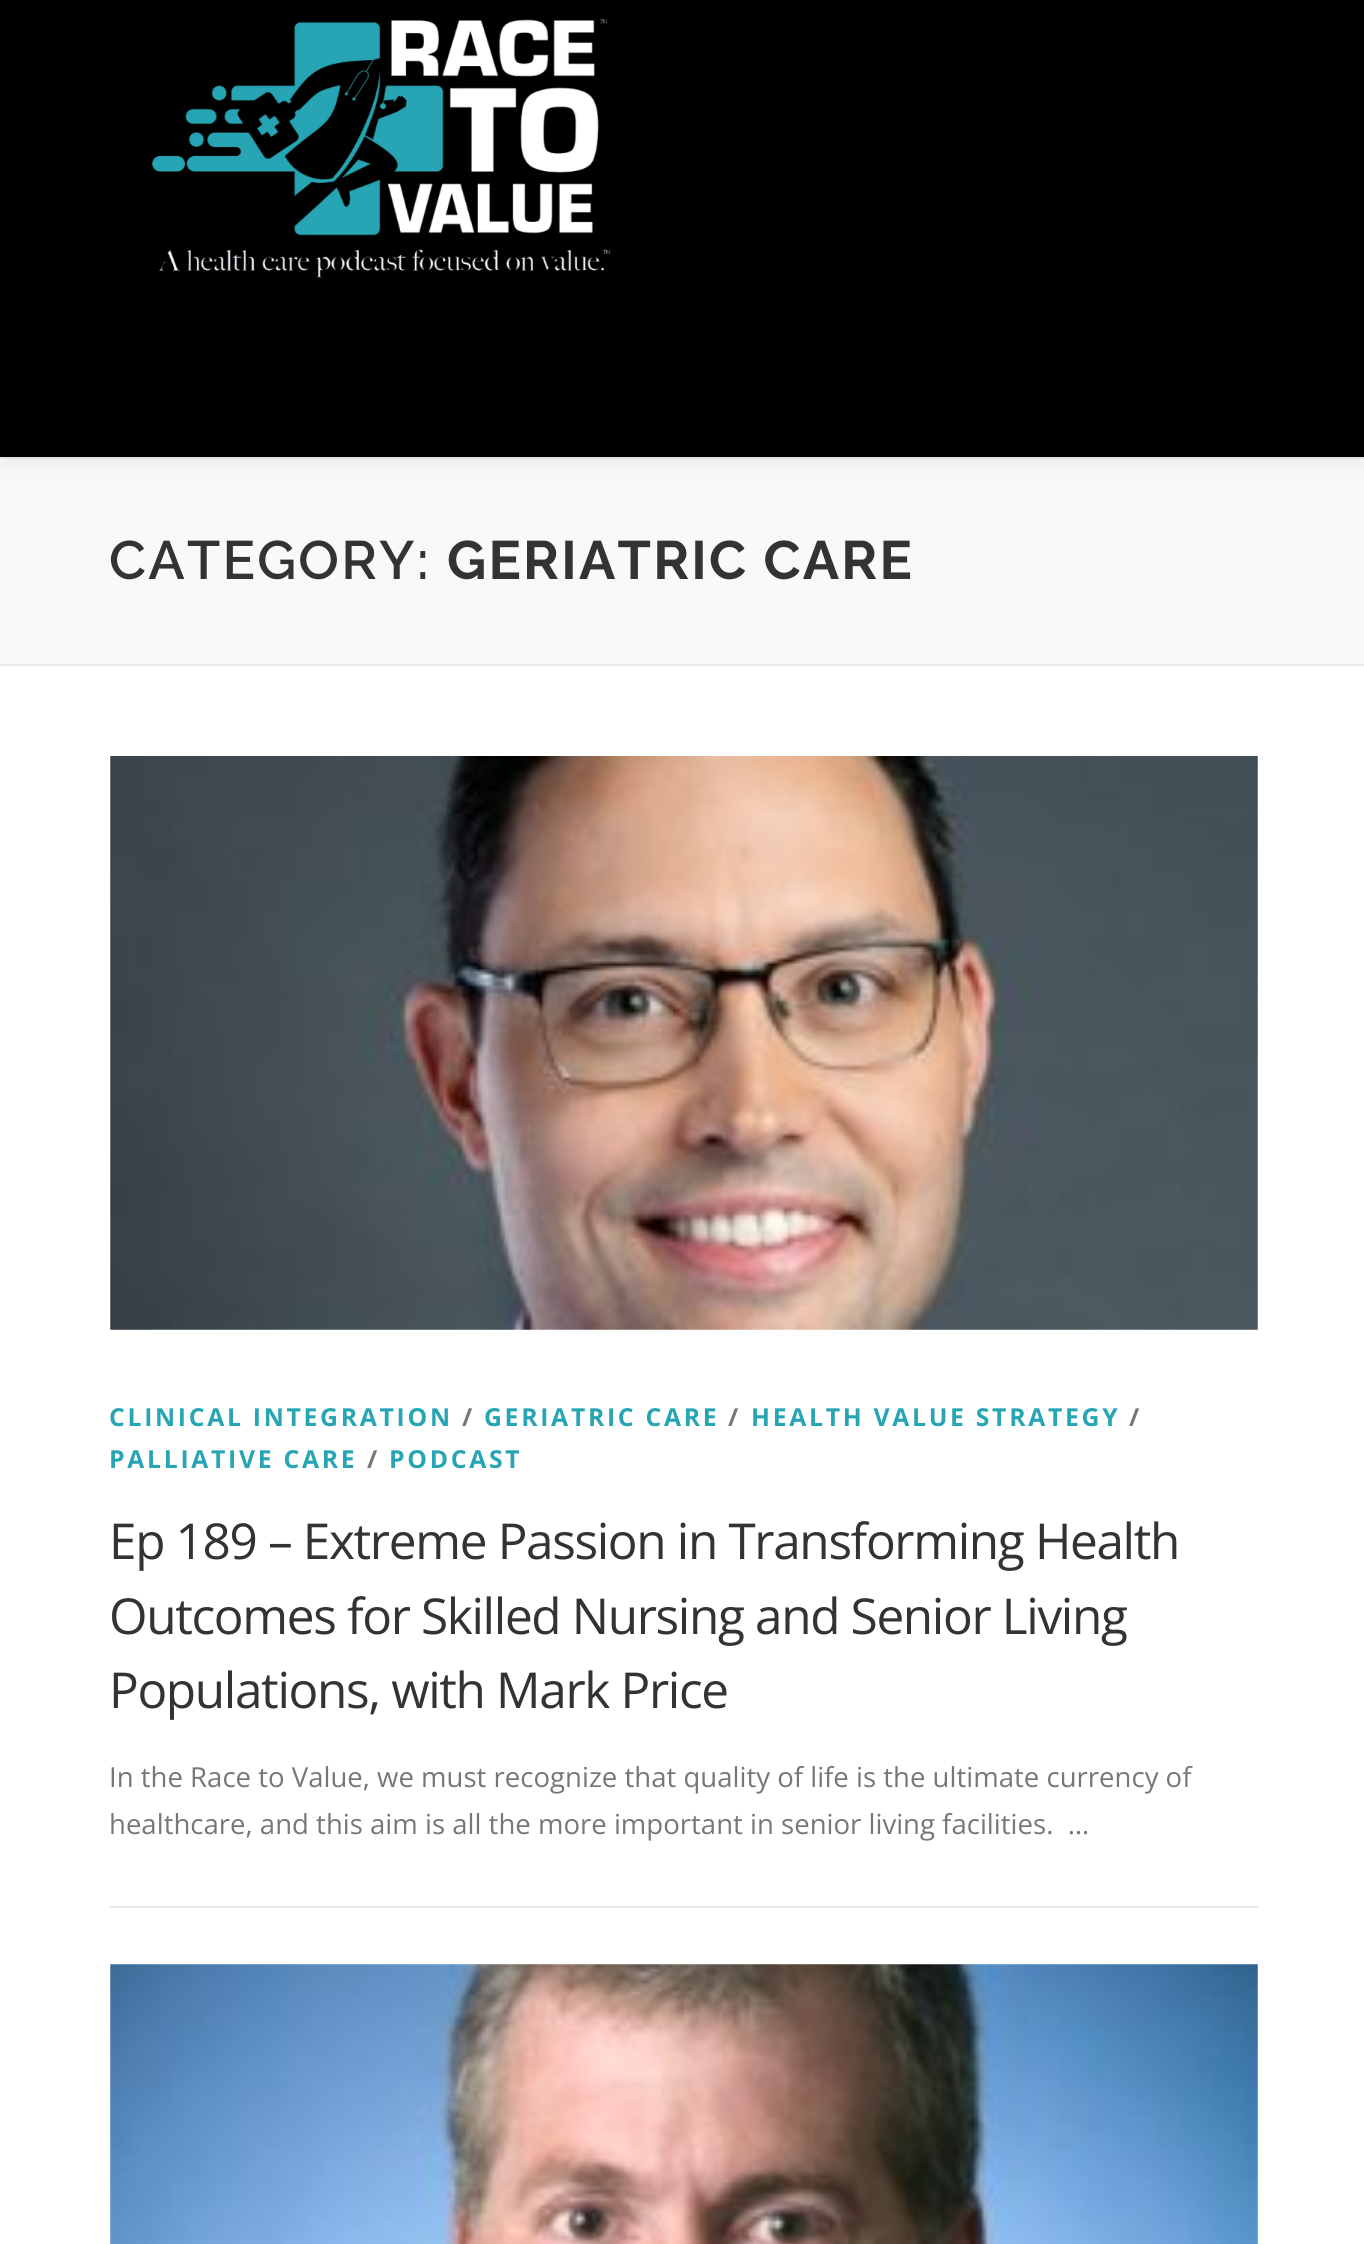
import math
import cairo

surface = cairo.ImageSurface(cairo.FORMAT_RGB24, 1364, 2244)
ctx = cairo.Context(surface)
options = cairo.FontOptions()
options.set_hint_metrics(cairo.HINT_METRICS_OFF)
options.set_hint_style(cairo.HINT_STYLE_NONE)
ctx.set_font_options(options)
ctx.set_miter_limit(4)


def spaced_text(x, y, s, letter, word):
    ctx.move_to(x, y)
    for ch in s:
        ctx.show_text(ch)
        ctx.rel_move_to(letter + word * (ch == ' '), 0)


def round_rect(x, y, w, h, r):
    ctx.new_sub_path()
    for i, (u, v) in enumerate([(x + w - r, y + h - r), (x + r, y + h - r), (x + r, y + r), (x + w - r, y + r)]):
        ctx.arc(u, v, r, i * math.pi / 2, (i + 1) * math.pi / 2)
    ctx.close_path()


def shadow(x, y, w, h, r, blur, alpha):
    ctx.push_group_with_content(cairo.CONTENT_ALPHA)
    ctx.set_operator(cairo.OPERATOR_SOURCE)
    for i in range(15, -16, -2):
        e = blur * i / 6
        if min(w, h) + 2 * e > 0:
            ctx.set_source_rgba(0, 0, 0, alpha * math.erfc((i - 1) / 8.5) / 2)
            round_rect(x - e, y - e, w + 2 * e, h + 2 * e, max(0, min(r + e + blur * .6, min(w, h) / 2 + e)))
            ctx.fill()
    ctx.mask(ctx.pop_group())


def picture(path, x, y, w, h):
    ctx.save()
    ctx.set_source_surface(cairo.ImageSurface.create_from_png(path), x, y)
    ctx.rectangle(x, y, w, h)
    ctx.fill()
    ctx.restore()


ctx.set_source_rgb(1, 1, 1)
ctx.paint()
ctx.set_source_rgb(0.973, 0.976, 0.976)
ctx.rectangle(0, 459, 1364, 205)
ctx.fill()
ctx.set_source_rgb(0.914, 0.914, 0.914)
ctx.rectangle(0, 457, 1364, 2)
ctx.fill()
ctx.set_source_rgb(0.196, 0.196, 0.196)
shadow(0, 11, 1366, 457, 0, 11, 0.06)
ctx.set_source_rgb(0, 0, 0)
ctx.rectangle(0, 0, 1364, 457)
ctx.fill()
picture("img1.png", 151, 18, 460, 260)
ctx.set_source_rgb(0.914, 0.914, 0.914)
ctx.rectangle(0, 664, 1364, 2)
ctx.fill()
ctx.select_font_face("Raleway SemiBold")
ctx.set_font_size(54)
ctx.set_source_rgb(0.2, 0.2, 0.2)
spaced_text(109, 579, "CATEGORY:", 2.25, 0)
ctx.select_font_face("Raleway", cairo.FONT_SLANT_NORMAL, cairo.FONT_WEIGHT_BOLD)
spaced_text(447, 579, "GERIATRIC CARE", 2.25, 0)
picture("img2.png", 110, 756, 1148, 574)
ctx.select_font_face("Open Sans", cairo.FONT_SLANT_NORMAL, cairo.FONT_WEIGHT_BOLD)
ctx.set_font_size(24.75)
ctx.set_source_rgb(0.153, 0.647, 0.71)
spaced_text(109, 1426, "CLINICAL INTEGRATION", 2.7, 0)
ctx.set_source_rgb(0.467, 0.467, 0.467)
spaced_text(462, 1426, "/", 2.7, 0)
ctx.set_source_rgb(0.153, 0.647, 0.71)
spaced_text(484, 1426, "GERIATRIC CARE", 2.7, 0)
ctx.set_source_rgb(0.467, 0.467, 0.467)
spaced_text(728, 1426, "/", 2.7, 0)
ctx.set_source_rgb(0.153, 0.647, 0.71)
spaced_text(751, 1426, "HEALTH VALUE STRATEGY", 2.7, 0)
ctx.set_source_rgb(0.467, 0.467, 0.467)
spaced_text(1129, 1426, "/", 2.7, 0)
ctx.set_source_rgb(0.153, 0.647, 0.71)
spaced_text(109, 1468, "PALLIATIVE CARE", 2.7, 0)
ctx.set_source_rgb(0.467, 0.467, 0.467)
spaced_text(367, 1468, "/", 2.7, 0)
ctx.set_source_rgb(0.153, 0.647, 0.71)
spaced_text(389, 1468, "PODCAST", 2.7, 0)
ctx.select_font_face("Open Sans")
ctx.set_font_size(49.5)
ctx.set_source_rgb(0.2, 0.2, 0.2)
spaced_text(109, 1559, "Ep 189 – Extreme Passion in Transforming Health", -1.35, 0)
spaced_text(109, 1634, "Outcomes for Skilled Nursing and Senior Living", -1.35, 0)
spaced_text(109, 1708, "Populations, with Mark Price", -1.35, 0)
ctx.set_font_size(27.55)
ctx.set_source_rgb(0.467, 0.467, 0.467)
ctx.move_to(109, 1787)
ctx.show_text("In the Race to Value, we must recognize that quality of life is the ultimate currency of")
ctx.move_to(109, 1834)
ctx.show_text("healthcare, and this aim is all the more important in senior living facilities.  …")
ctx.set_source_rgb(0.914, 0.914, 0.914)
ctx.rectangle(110, 1906, 1148, 2)
ctx.fill()
picture("img3.png", 110, 1964, 1148, 280)
surface.write_to_png("page.png")
